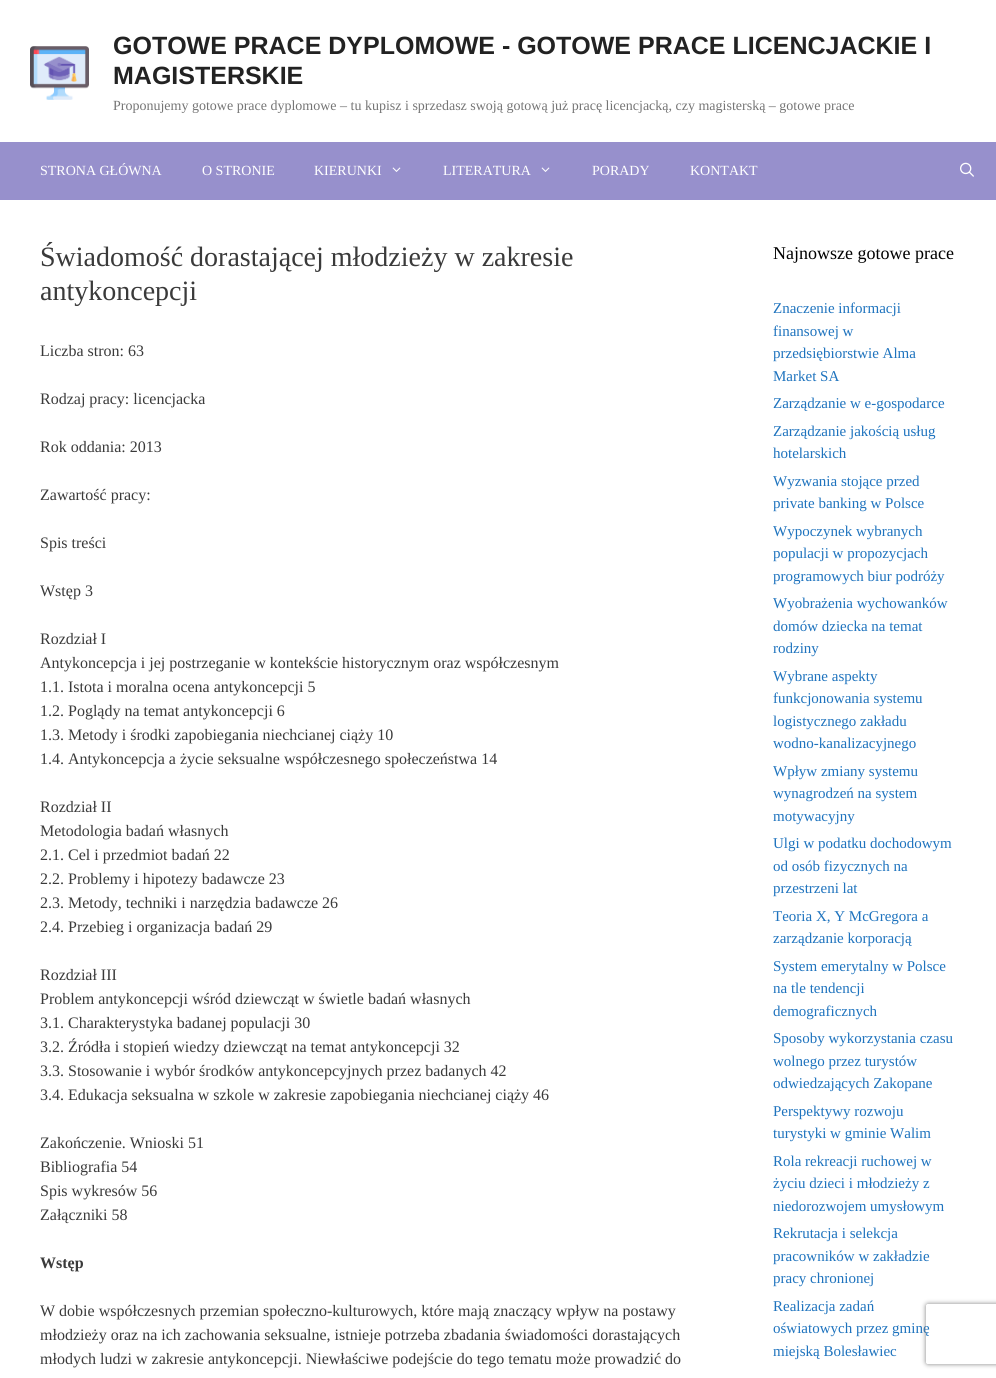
import math
import cairo

surface = cairo.ImageSurface(cairo.FORMAT_RGB24, 996, 1378)
ctx = cairo.Context(surface)
options = cairo.FontOptions()
options.set_hint_metrics(cairo.HINT_METRICS_OFF)
options.set_hint_style(cairo.HINT_STYLE_NONE)
ctx.set_font_options(options)
ctx.set_miter_limit(4)


def round_rect(x, y, w, h, r):
    ctx.new_sub_path()
    for i, (u, v) in enumerate([(x + w - r, y + h - r), (x + r, y + h - r), (x + r, y + r), (x + w - r, y + r)]):
        ctx.arc(u, v, r, i * math.pi / 2, (i + 1) * math.pi / 2)
    ctx.close_path()


def shadow(x, y, w, h, r, blur, alpha):
    ctx.push_group_with_content(cairo.CONTENT_ALPHA)
    ctx.set_operator(cairo.OPERATOR_SOURCE)
    for i in range(15, -16, -2):
        e = blur * i / 6
        if min(w, h) + 2 * e > 0:
            ctx.set_source_rgba(0, 0, 0, alpha * math.erfc((i - 1) / 8.5) / 2)
            round_rect(x - e, y - e, w + 2 * e, h + 2 * e, max(0, min(r + e + blur * .6, min(w, h) / 2 + e)))
            ctx.fill()
    ctx.mask(ctx.pop_group())


def picture(path, x, y, w, h):
    ctx.save()
    ctx.set_source_surface(cairo.ImageSurface.create_from_png(path), x, y)
    ctx.rectangle(x, y, w, h)
    ctx.fill()
    ctx.restore()


ctx.set_source_rgb(0.592, 0.565, 0.8)
ctx.paint()
ctx.set_source_rgb(1, 1, 1)
ctx.rectangle(0, 0, 996, 142)
ctx.fill()
picture("img1.png", 30, 46, 59, 54)
ctx.select_font_face("Liberation Sans", cairo.FONT_SLANT_NORMAL, cairo.FONT_WEIGHT_BOLD)
ctx.set_font_size(25)
ctx.set_source_rgb(0.133, 0.133, 0.133)
ctx.move_to(113, 54)
ctx.show_text("GOTOWE PRACE DYPLOMOWE - GOTOWE PRACE LICENCJACKIE I")
ctx.move_to(113, 84)
ctx.show_text("MAGISTERSKIE")
ctx.select_font_face("Liberation Serif")
ctx.set_font_size(14)
ctx.set_source_rgb(0.459, 0.459, 0.459)
ctx.move_to(113, 110)
ctx.show_text("Proponujemy gotowe prace dyplomowe – tu kupisz i sprzedasz swoją gotową już pracę licencjacką, czy magisterską – gotowe prace")
ctx.set_source_rgb(1, 1, 1)
ctx.move_to(40, 175)
ctx.show_text("STRONA GŁÓWNA")
ctx.move_to(202, 175)
ctx.show_text("O STRONIE")
ctx.move_to(314, 175)
ctx.show_text("KIERUNKI")
picture("img2.png", 392, 167, 9, 5)
ctx.move_to(443, 175)
ctx.show_text("LITERATURA")
picture("img2.png", 541, 167, 9, 5)
ctx.move_to(592, 175)
ctx.show_text("PORADY")
ctx.move_to(690, 175)
ctx.show_text("KONTAKT")
picture("img3.png", 960, 162, 14, 15)
ctx.rectangle(0, 200, 996, 1178)
ctx.fill()
ctx.set_font_size(28)
ctx.set_source_rgb(0.227, 0.227, 0.227)
ctx.move_to(40, 266)
ctx.show_text("Świadomość dorastającej młodzieży w zakresie")
ctx.move_to(40, 300)
ctx.show_text("antykoncepcji")
ctx.set_font_size(16)
ctx.move_to(40, 356)
ctx.show_text("Liczba stron: 63")
ctx.move_to(40, 404)
ctx.show_text("Rodzaj pracy: licencjacka")
ctx.move_to(40, 452)
ctx.show_text("Rok oddania: 2013")
ctx.move_to(40, 500)
ctx.show_text("Zawartość pracy:")
ctx.move_to(40, 548)
ctx.show_text("Spis treści")
ctx.move_to(40, 596)
ctx.show_text("Wstęp 3")
ctx.move_to(40, 644)
ctx.show_text("Rozdział I")
ctx.move_to(40, 668)
ctx.show_text("Antykoncepcja i jej postrzeganie w kontekście historycznym oraz współczesnym")
ctx.move_to(40, 692)
ctx.show_text("1.1. Istota i moralna ocena antykoncepcji 5")
ctx.move_to(40, 716)
ctx.show_text("1.2. Poglądy na temat antykoncepcji 6")
ctx.move_to(40, 740)
ctx.show_text("1.3. Metody i środki zapobiegania niechcianej ciąży 10")
ctx.move_to(40, 764)
ctx.show_text("1.4. Antykoncepcja a życie seksualne współczesnego społeczeństwa 14")
ctx.move_to(40, 812)
ctx.show_text("Rozdział II")
ctx.move_to(40, 836)
ctx.show_text("Metodologia badań własnych")
ctx.move_to(40, 860)
ctx.show_text("2.1. Cel i przedmiot badań 22")
ctx.move_to(40, 884)
ctx.show_text("2.2. Problemy i hipotezy badawcze 23")
ctx.move_to(40, 908)
ctx.show_text("2.3. Metody, techniki i narzędzia badawcze 26")
ctx.move_to(40, 932)
ctx.show_text("2.4. Przebieg i organizacja badań 29")
ctx.move_to(40, 980)
ctx.show_text("Rozdział III")
ctx.move_to(40, 1004)
ctx.show_text("Problem antykoncepcji wśród dziewcząt w świetle badań własnych")
ctx.move_to(40, 1028)
ctx.show_text("3.1. Charakterystyka badanej populacji 30")
ctx.move_to(40, 1052)
ctx.show_text("3.2. Źródła i stopień wiedzy dziewcząt na temat antykoncepcji 32")
ctx.move_to(40, 1076)
ctx.show_text("3.3. Stosowanie i wybór środków antykoncepcyjnych przez badanych 42")
ctx.move_to(40, 1100)
ctx.show_text("3.4. Edukacja seksualna w szkole w zakresie zapobiegania niechcianej ciąży 46")
ctx.move_to(40, 1148)
ctx.show_text("Zakończenie. Wnioski 51")
ctx.move_to(40, 1172)
ctx.show_text("Bibliografia 54")
ctx.move_to(40, 1196)
ctx.show_text("Spis wykresów 56")
ctx.move_to(40, 1220)
ctx.show_text("Załączniki 58")
ctx.select_font_face("Liberation Serif", cairo.FONT_SLANT_NORMAL, cairo.FONT_WEIGHT_BOLD)
ctx.move_to(40, 1268)
ctx.show_text("Wstęp")
ctx.select_font_face("Liberation Serif")
ctx.move_to(40, 1316)
ctx.show_text("W dobie współczesnych przemian społeczno-kulturowych, które mają znaczący wpływ na postawy")
ctx.move_to(40, 1340)
ctx.show_text("młodzieży oraz na ich zachowania seksualne, istnieje potrzeba zbadania świadomości dorastających")
ctx.move_to(40, 1364)
ctx.show_text("młodych ludzi w zakresie antykoncepcji. Niewłaściwe podejście do tego tematu może prowadzić do")
ctx.set_font_size(18)
ctx.set_source_rgb(0, 0, 0)
ctx.move_to(773, 259)
ctx.show_text("Najnowsze gotowe prace")
ctx.set_font_size(15)
ctx.set_source_rgb(0.118, 0.451, 0.745)
ctx.move_to(773, 313)
ctx.show_text("Znaczenie informacji")
ctx.move_to(773, 336)
ctx.show_text("finansowej w")
ctx.move_to(773, 358)
ctx.show_text("przedsiębiorstwie Alma")
ctx.move_to(773, 381)
ctx.show_text("Market SA")
ctx.move_to(773, 408)
ctx.show_text("Zarządzanie w e-gospodarce")
ctx.move_to(773, 436)
ctx.show_text("Zarządzanie jakością usług")
ctx.move_to(773, 458)
ctx.show_text("hotelarskich")
ctx.move_to(773, 486)
ctx.show_text("Wyzwania stojące przed")
ctx.move_to(773, 508)
ctx.show_text("private banking w Polsce")
ctx.move_to(773, 536)
ctx.show_text("Wypoczynek wybranych")
ctx.move_to(773, 558)
ctx.show_text("populacji w propozycjach")
ctx.move_to(773, 581)
ctx.show_text("programowych biur podróży")
ctx.move_to(773, 608)
ctx.show_text("Wyobrażenia wychowanków")
ctx.move_to(773, 631)
ctx.show_text("domów dziecka na temat")
ctx.move_to(773, 653)
ctx.show_text("rodziny")
ctx.move_to(773, 681)
ctx.show_text("Wybrane aspekty")
ctx.move_to(773, 703)
ctx.show_text("funkcjonowania systemu")
ctx.move_to(773, 726)
ctx.show_text("logistycznego zakładu")
ctx.move_to(773, 748)
ctx.show_text("wodno-kanalizacyjnego")
ctx.move_to(773, 776)
ctx.show_text("Wpływ zmiany systemu")
ctx.move_to(773, 798)
ctx.show_text("wynagrodzeń na system")
ctx.move_to(773, 821)
ctx.show_text("motywacyjny")
ctx.move_to(773, 848)
ctx.show_text("Ulgi w podatku dochodowym")
ctx.move_to(773, 871)
ctx.show_text("od osób fizycznych na")
ctx.move_to(773, 893)
ctx.show_text("przestrzeni lat")
ctx.move_to(773, 921)
ctx.show_text("Teoria X, Y McGregora a")
ctx.move_to(773, 943)
ctx.show_text("zarządzanie korporacją")
ctx.move_to(773, 971)
ctx.show_text("System emerytalny w Polsce")
ctx.move_to(773, 993)
ctx.show_text("na tle tendencji")
ctx.move_to(773, 1016)
ctx.show_text("demograficznych")
ctx.move_to(773, 1043)
ctx.show_text("Sposoby wykorzystania czasu")
ctx.move_to(773, 1066)
ctx.show_text("wolnego przez turystów")
ctx.move_to(773, 1088)
ctx.show_text("odwiedzających Zakopane")
ctx.move_to(773, 1116)
ctx.show_text("Perspektywy rozwoju")
ctx.move_to(773, 1138)
ctx.show_text("turystyki w gminie Walim")
ctx.move_to(773, 1166)
ctx.show_text("Rola rekreacji ruchowej w")
ctx.move_to(773, 1188)
ctx.show_text("życiu dzieci i młodzieży z")
ctx.move_to(773, 1211)
ctx.show_text("niedorozwojem umysłowym")
ctx.move_to(773, 1238)
ctx.show_text("Rekrutacja i selekcja")
ctx.move_to(773, 1261)
ctx.show_text("pracowników w zakładzie")
ctx.move_to(773, 1283)
ctx.show_text("pracy chronionej")
ctx.move_to(773, 1311)
ctx.show_text("Realizacja zadań")
ctx.move_to(773, 1333)
ctx.show_text("oświatowych przez gminę")
ctx.move_to(773, 1356)
ctx.show_text("miejską Bolesławiec")
ctx.save()
ctx.set_fill_rule(cairo.FILL_RULE_EVEN_ODD)
ctx.new_path()
ctx.move_to(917, 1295)
ctx.line_to(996, 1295)
ctx.line_to(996, 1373)
ctx.line_to(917, 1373)
ctx.close_path()
ctx.move_to(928, 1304)
ctx.line_to(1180, 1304)
ctx.curve_to(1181, 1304, 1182, 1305, 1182, 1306)
ctx.line_to(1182, 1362)
ctx.curve_to(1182, 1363, 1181, 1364, 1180, 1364)
ctx.line_to(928, 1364)
ctx.curve_to(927, 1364, 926, 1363, 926, 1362)
ctx.line_to(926, 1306)
ctx.curve_to(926, 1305, 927, 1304, 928, 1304)
ctx.close_path()
ctx.clip()
ctx.set_source_rgb(0.502, 0.502, 0.502)
shadow(926, 1304, 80, 60, 2, 2.5, 1)
ctx.restore()
surface.write_to_png("page.png")
